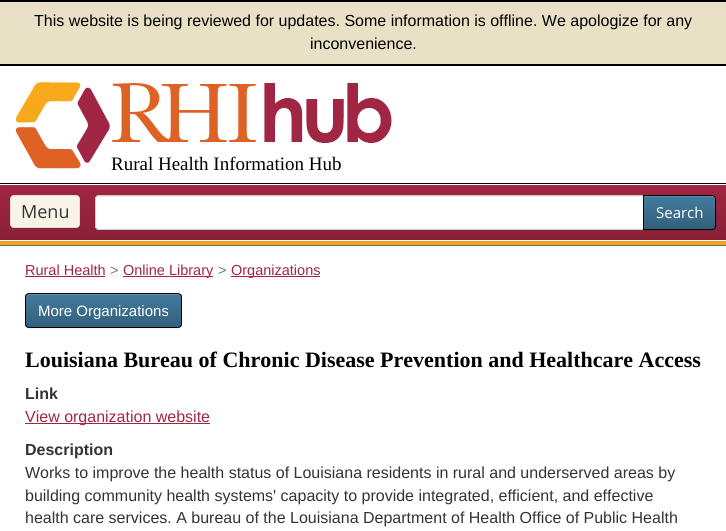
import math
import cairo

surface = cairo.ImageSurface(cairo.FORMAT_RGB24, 726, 531)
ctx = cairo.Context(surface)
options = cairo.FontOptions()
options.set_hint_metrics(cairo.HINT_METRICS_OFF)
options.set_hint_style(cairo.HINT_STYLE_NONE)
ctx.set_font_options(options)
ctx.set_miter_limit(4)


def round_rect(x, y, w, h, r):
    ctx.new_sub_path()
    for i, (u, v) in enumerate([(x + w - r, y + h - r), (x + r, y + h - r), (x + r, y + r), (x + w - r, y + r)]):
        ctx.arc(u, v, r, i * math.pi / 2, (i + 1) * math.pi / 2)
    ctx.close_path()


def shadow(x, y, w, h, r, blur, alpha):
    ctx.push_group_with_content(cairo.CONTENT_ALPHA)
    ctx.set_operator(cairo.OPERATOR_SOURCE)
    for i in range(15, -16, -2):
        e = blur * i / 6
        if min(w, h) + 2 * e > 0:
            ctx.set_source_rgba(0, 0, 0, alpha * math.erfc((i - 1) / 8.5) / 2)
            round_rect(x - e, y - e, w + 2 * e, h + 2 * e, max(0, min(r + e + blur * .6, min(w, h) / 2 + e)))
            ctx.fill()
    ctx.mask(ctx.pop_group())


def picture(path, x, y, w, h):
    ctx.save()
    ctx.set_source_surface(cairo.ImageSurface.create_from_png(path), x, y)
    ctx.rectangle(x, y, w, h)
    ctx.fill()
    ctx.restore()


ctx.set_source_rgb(1, 1, 1)
ctx.paint()
ctx.set_source_rgb(0, 0, 0)
ctx.rectangle(0, 183, 726, 1)
ctx.fill()
ctx.set_source_rgb(0.914, 0.882, 0.773)
ctx.rectangle(0, 2, 726, 62)
ctx.fill()
ctx.set_source_rgb(0, 0, 0)
ctx.rectangle(0, 0, 726, 2)
ctx.fill()
ctx.rectangle(0, 64, 726, 2)
ctx.fill()
ctx.select_font_face("Liberation Sans")
ctx.set_font_size(16)
ctx.move_to(34, 26)
ctx.show_text("This website is being reviewed for updates. Some information is offline. We apologize for any")
ctx.move_to(310, 49)
ctx.show_text("inconvenience.")
picture("img1.png", 16, 82, 376, 87)
ctx.select_font_face("Liberation Serif")
ctx.set_font_size(19)
ctx.move_to(111, 170)
ctx.show_text("Rural Health Information Hub")
ctx.set_source_rgb(0.4, 0.4, 0.4)
ctx.rectangle(0, 245, 726, 1)
ctx.fill()
ctx.set_source_rgb(0.969, 0.659, 0.106)
ctx.rectangle(0, 241, 726, 4)
ctx.fill()
ctx.set_source_rgb(0.588, 0.02, 0.114)
shadow(0, 185, 726, 57, 0, 2.5, 0.07)
gradient = cairo.LinearGradient(363, 185, 363, 240)
gradient.add_color_stop_rgba(0, 0.631, 0.149, 0.255, 1)
gradient.add_color_stop_rgba(1, 0.537, 0.125, 0.216, 1)
ctx.set_source(gradient)
ctx.rectangle(0, 185, 726, 55)
ctx.fill()
ctx.set_source_rgb(1, 1, 1)
ctx.rectangle(0, 184, 726, 1)
ctx.fill()
ctx.rectangle(0, 240, 726, 1)
ctx.fill()
ctx.set_source_rgb(0.976, 0.957, 0.91)
round_rect(10.5, 195.5, 69, 32, 3.5)
ctx.fill_preserve()
ctx.set_source_rgb(0.867, 0.867, 0.867)
ctx.set_line_width(1)
ctx.stroke()
ctx.select_font_face("Open Sans")
ctx.set_font_size(18)
ctx.set_source_rgb(0.2, 0.2, 0.2)
ctx.move_to(21, 218)
ctx.show_text("Menu")
ctx.set_source_rgb(1, 1, 1)
ctx.new_path()
ctx.move_to(99, 195)
ctx.line_to(644, 195)
ctx.line_to(644, 230)
ctx.line_to(99, 230)
ctx.curve_to(97, 230, 95, 228, 95, 226)
ctx.line_to(95, 199)
ctx.curve_to(95, 197, 97, 195, 99, 195)
ctx.close_path()
ctx.fill()
ctx.set_source_rgb(0.925, 0.925, 0.925)
ctx.new_path()
ctx.move_to(99, 197)
ctx.line_to(643, 197)
ctx.line_to(643, 196)
ctx.line_to(99, 196)
ctx.curve_to(97, 196, 96, 198, 96, 200)
ctx.curve_to(96, 198, 97, 197, 99, 197)
ctx.close_path()
ctx.fill()
ctx.new_path()
ctx.move_to(99, 195.5)
ctx.line_to(643.5, 195.5)
ctx.line_to(643.5, 229.5)
ctx.line_to(99, 229.5)
ctx.curve_to(97, 229.5, 95.5, 228, 95.5, 226)
ctx.line_to(95.5, 199)
ctx.curve_to(95.5, 197, 97, 195.5, 99, 195.5)
ctx.close_path()
ctx.set_source_rgb(0.8, 0.8, 0.8)
ctx.stroke()
ctx.set_source_rgb(0, 0, 0)
shadow(643, 196, 73, 35, 4, 0.5, 0.07)
ctx.save()
ctx.new_path()
ctx.move_to(643, 195)
ctx.line_to(712, 195)
ctx.curve_to(714, 195, 716, 197, 716, 199)
ctx.line_to(716, 226)
ctx.curve_to(716, 228, 714, 230, 712, 230)
ctx.line_to(643, 230)
ctx.close_path()
ctx.clip()
gradient = cairo.LinearGradient(680, 196, 680, 229)
gradient.add_color_stop_rgba(0, 0.259, 0.482, 0.62, 1)
gradient.add_color_stop_rgba(1, 0.2, 0.376, 0.478, 1)
ctx.set_source(gradient)
ctx.rectangle(644, 196, 72, 33)
ctx.fill()
ctx.restore()
ctx.set_source_rgb(0.369, 0.561, 0.675)
ctx.new_path()
ctx.move_to(644, 197)
ctx.line_to(712, 197)
ctx.curve_to(714, 197, 715, 198, 715, 200)
ctx.line_to(715, 199)
ctx.curve_to(715, 197, 714, 196, 712, 196)
ctx.line_to(644, 196)
ctx.close_path()
ctx.fill()
ctx.new_path()
ctx.move_to(643.5, 195.5)
ctx.line_to(712, 195.5)
ctx.curve_to(714, 195.5, 715.5, 197, 715.5, 199)
ctx.line_to(715.5, 226)
ctx.curve_to(715.5, 228, 714, 229.5, 712, 229.5)
ctx.line_to(643.5, 229.5)
ctx.close_path()
ctx.set_source_rgb(0, 0, 0)
ctx.stroke()
ctx.set_font_size(15)
ctx.set_source_rgb(1, 1, 1)
ctx.move_to(656, 218)
ctx.show_text("Search")
ctx.select_font_face("Liberation Sans")
ctx.set_font_size(14.5)
ctx.set_source_rgb(0.631, 0.149, 0.255)
ctx.move_to(25, 275)
ctx.show_text("Rural Health")
ctx.rectangle(25, 276, 80, 1)
ctx.fill()
ctx.set_source_rgb(0.463, 0.463, 0.463)
ctx.move_to(110, 275)
ctx.show_text(">")
ctx.set_source_rgb(0.631, 0.149, 0.255)
ctx.rectangle(123, 276, 90, 1)
ctx.fill()
ctx.move_to(123, 275)
ctx.show_text("Online Library")
ctx.set_source_rgb(0.463, 0.463, 0.463)
ctx.move_to(218, 275)
ctx.show_text(">")
ctx.set_source_rgb(0.631, 0.149, 0.255)
ctx.rectangle(231, 276, 89, 1)
ctx.fill()
ctx.move_to(231, 275)
ctx.show_text("Organizations")
ctx.set_source_rgb(0, 0, 0)
shadow(25, 294, 157, 35, 4, 0.5, 0.07)
ctx.save()
round_rect(25, 293, 157, 35, 4)
ctx.clip()
gradient = cairo.LinearGradient(104, 294, 104, 327)
gradient.add_color_stop_rgba(0, 0.259, 0.482, 0.62, 1)
gradient.add_color_stop_rgba(1, 0.2, 0.376, 0.478, 1)
ctx.set_source(gradient)
ctx.rectangle(25, 294, 157, 33)
ctx.fill()
ctx.restore()
ctx.set_source_rgba(1, 1, 1, 0.15)
ctx.new_path()
ctx.move_to(29, 295)
ctx.line_to(178, 295)
ctx.curve_to(180, 295, 181, 296, 181, 298)
ctx.curve_to(181, 296, 181, 295, 179, 294)
ctx.line_to(54, 294)
ctx.curve_to(46, 294, 26, 289, 26, 298)
ctx.curve_to(26, 296, 27, 295, 29, 295)
ctx.close_path()
ctx.fill()
round_rect(25.5, 293.5, 156, 34, 3.5)
ctx.set_source_rgb(0, 0, 0)
ctx.stroke()
ctx.set_font_size(15)
ctx.set_source_rgb(1, 1, 1)
ctx.move_to(38, 316)
ctx.show_text("More Organizations")
ctx.select_font_face("Liberation Serif", cairo.FONT_SLANT_NORMAL, cairo.FONT_WEIGHT_BOLD)
ctx.set_font_size(22)
ctx.set_source_rgb(0, 0, 0)
ctx.move_to(25, 367)
ctx.show_text("Louisiana Bureau of Chronic Disease Prevention and Healthcare Access")
ctx.select_font_face("Liberation Sans", cairo.FONT_SLANT_NORMAL, cairo.FONT_WEIGHT_BOLD)
ctx.set_font_size(16)
ctx.set_source_rgb(0.2, 0.2, 0.2)
ctx.move_to(25, 399)
ctx.show_text("Link")
ctx.set_source_rgb(0.631, 0.149, 0.255)
ctx.rectangle(25, 423, 185, 1)
ctx.fill()
ctx.select_font_face("Liberation Sans")
ctx.move_to(25, 422)
ctx.show_text("View organization website")
ctx.select_font_face("Liberation Sans", cairo.FONT_SLANT_NORMAL, cairo.FONT_WEIGHT_BOLD)
ctx.set_source_rgb(0.2, 0.2, 0.2)
ctx.move_to(25, 455)
ctx.show_text("Description")
ctx.select_font_face("Liberation Sans")
ctx.move_to(25, 478)
ctx.show_text("Works to improve the health status of Louisiana residents in rural and underserved areas by")
ctx.move_to(25, 501)
ctx.show_text("building community health systems' capacity to provide integrated, efficient, and effective")
ctx.move_to(25, 523)
ctx.show_text("health care services. A bureau of the Louisiana Department of Health Office of Public Health")
surface.write_to_png("page.png")
